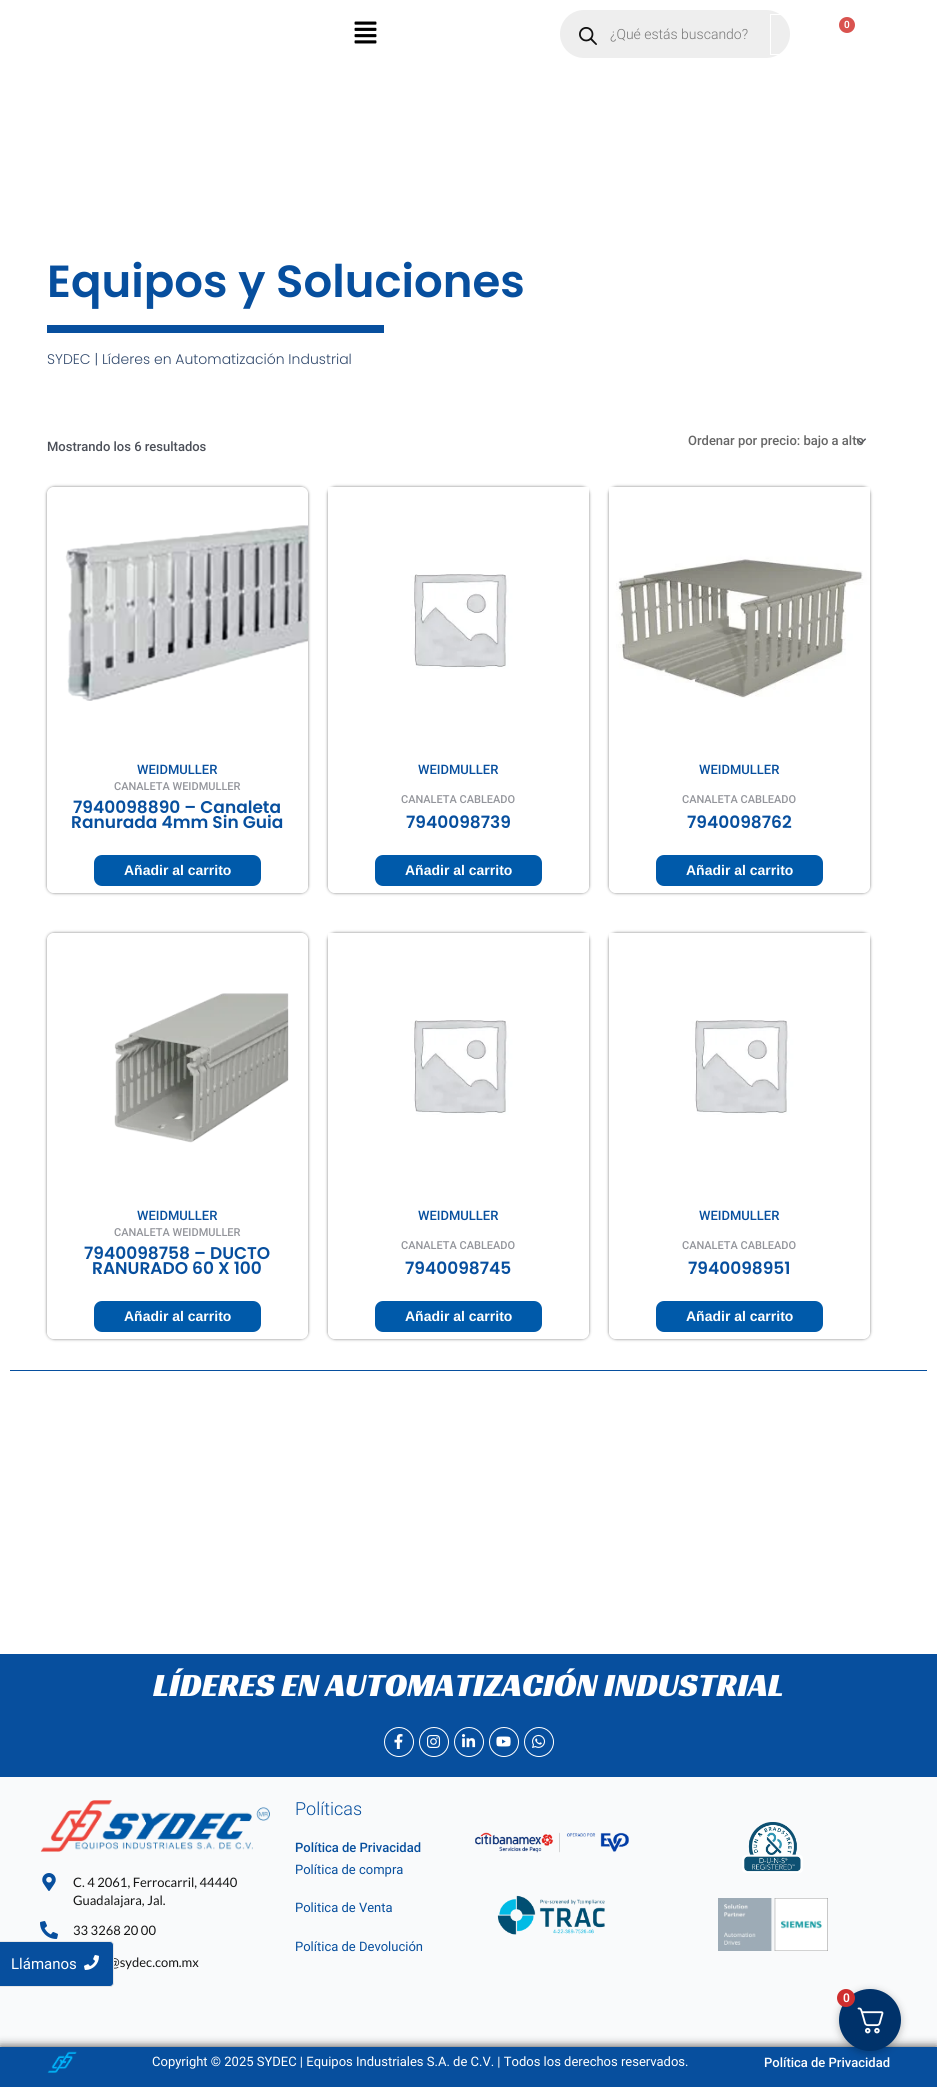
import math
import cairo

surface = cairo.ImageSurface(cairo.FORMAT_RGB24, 937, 2087)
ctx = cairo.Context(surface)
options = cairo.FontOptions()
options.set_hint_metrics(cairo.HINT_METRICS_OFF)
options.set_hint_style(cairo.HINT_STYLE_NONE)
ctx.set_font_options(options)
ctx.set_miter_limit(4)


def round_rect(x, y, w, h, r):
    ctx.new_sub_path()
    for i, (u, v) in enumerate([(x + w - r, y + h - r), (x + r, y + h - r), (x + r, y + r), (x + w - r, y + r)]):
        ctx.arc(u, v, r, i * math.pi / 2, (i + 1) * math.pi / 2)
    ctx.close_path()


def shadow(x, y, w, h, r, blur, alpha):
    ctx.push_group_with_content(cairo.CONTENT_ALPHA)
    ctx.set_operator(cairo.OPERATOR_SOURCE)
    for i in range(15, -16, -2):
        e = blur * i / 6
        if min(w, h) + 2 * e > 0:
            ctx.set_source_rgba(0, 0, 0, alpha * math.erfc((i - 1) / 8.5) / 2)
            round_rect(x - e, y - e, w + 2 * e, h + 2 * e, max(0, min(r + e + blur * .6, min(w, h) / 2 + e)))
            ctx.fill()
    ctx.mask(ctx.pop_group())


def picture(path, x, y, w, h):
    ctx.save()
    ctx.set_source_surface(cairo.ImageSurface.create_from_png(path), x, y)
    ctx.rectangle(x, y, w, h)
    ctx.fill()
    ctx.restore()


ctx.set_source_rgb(1, 1, 1)
ctx.paint()
picture("img1.png", 354, 21, 23, 23)
ctx.set_source_rgb(0.933, 0.933, 0.933)
round_rect(560, 10, 230, 48, 24)
ctx.fill()
picture("img2.png", 579, 27, 18, 18)
ctx.select_font_face("Roboto Light")
ctx.set_font_size(14)
ctx.set_source_rgb(0.467, 0.467, 0.467)
ctx.move_to(610, 39)
ctx.show_text("¿Qué estás buscando?")
ctx.rectangle(770.5, 14.5, 99, 40)
ctx.set_source_rgb(1, 1, 1)
ctx.set_line_width(1)
ctx.stroke()
ctx.set_source_rgb(0.851, 0.325, 0.31)
ctx.arc(847, 25, 8, 0, 2 * math.pi)
ctx.fill()
ctx.select_font_face("Roboto SemiBold")
ctx.set_font_size(10)
ctx.set_source_rgb(1, 1, 1)
ctx.move_to(844, 28)
ctx.show_text("0")
ctx.select_font_face("Poppins SemiBold")
ctx.set_font_size(45)
ctx.set_source_rgb(0.031, 0.31, 0.62)
ctx.move_to(47, 297)
ctx.show_text("Equipos y Soluciones")
ctx.rectangle(47, 325, 337, 8)
ctx.fill()
ctx.select_font_face("Poppins Light")
ctx.set_font_size(14)
ctx.set_source_rgb(0.196, 0.29, 0.427)
ctx.move_to(47, 364)
ctx.show_text("SYDEC | Líderes en Automatización Industrial")
ctx.select_font_face("Roboto Medium")
ctx.set_font_size(13)
ctx.set_source_rgb(0.294, 0.31, 0.345)
ctx.move_to(47, 451)
ctx.show_text("Mostrando los 6 resultados")
picture("img3.png", 856, 438, 11, 6)
ctx.set_source_rgb(0.4, 0.4, 0.4)
ctx.move_to(688, 445)
ctx.show_text("Ordenar por precio: bajo a alto")
ctx.save()
ctx.set_fill_rule(cairo.FILL_RULE_EVEN_ODD)
ctx.new_path()
ctx.move_to(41, 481)
ctx.line_to(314, 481)
ctx.line_to(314, 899)
ctx.line_to(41, 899)
ctx.close_path()
ctx.move_to(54, 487)
ctx.line_to(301, 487)
ctx.curve_to(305, 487, 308, 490, 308, 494)
ctx.line_to(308, 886)
ctx.curve_to(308, 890, 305, 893, 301, 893)
ctx.line_to(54, 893)
ctx.curve_to(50, 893, 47, 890, 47, 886)
ctx.line_to(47, 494)
ctx.curve_to(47, 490, 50, 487, 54, 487)
ctx.close_path()
ctx.clip()
ctx.set_source_rgb(0, 0, 0)
shadow(47, 487, 261, 406, 7, 1.5, 0.5)
ctx.restore()
picture("img4.png", 65, 525, 243, 176)
ctx.set_source_rgb(0.031, 0.31, 0.62)
ctx.move_to(137, 774)
ctx.show_text("WEIDMULLER")
ctx.set_font_size(11)
ctx.set_source_rgb(0.576, 0.584, 0.608)
ctx.move_to(114, 790)
ctx.show_text("CANALETA WEIDMULLER")
ctx.select_font_face("Poppins SemiBold")
ctx.set_font_size(17)
ctx.set_source_rgb(0.031, 0.31, 0.62)
ctx.move_to(73, 813)
ctx.show_text("7940098890 – Canaleta")
ctx.move_to(71, 828)
ctx.show_text("Ranurada 4mm Sin Guia")
ctx.set_source_rgb(0, 0.353, 0.667)
round_rect(94, 855, 167, 31, 8)
ctx.fill()
ctx.select_font_face("Liberation Sans", cairo.FONT_SLANT_NORMAL, cairo.FONT_WEIGHT_BOLD)
ctx.set_font_size(14)
ctx.set_source_rgb(1, 1, 1)
ctx.move_to(124, 875)
ctx.show_text("Añadir al carrito")
ctx.save()
ctx.set_fill_rule(cairo.FILL_RULE_EVEN_ODD)
ctx.new_path()
ctx.move_to(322, 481)
ctx.line_to(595, 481)
ctx.line_to(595, 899)
ctx.line_to(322, 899)
ctx.close_path()
ctx.move_to(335, 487)
ctx.line_to(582, 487)
ctx.curve_to(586, 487, 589, 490, 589, 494)
ctx.line_to(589, 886)
ctx.curve_to(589, 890, 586, 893, 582, 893)
ctx.line_to(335, 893)
ctx.curve_to(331, 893, 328, 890, 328, 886)
ctx.line_to(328, 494)
ctx.curve_to(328, 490, 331, 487, 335, 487)
ctx.close_path()
ctx.clip()
ctx.set_source_rgb(0, 0, 0)
shadow(328, 487, 261, 406, 7, 1.5, 0.5)
ctx.restore()
picture("img5.png", 328, 487, 261, 182)
ctx.select_font_face("Roboto Medium")
ctx.set_font_size(13)
ctx.set_source_rgb(0.031, 0.31, 0.62)
ctx.move_to(418, 774)
ctx.show_text("WEIDMULLER")
ctx.set_font_size(11)
ctx.set_source_rgb(0.576, 0.584, 0.608)
ctx.move_to(401, 803)
ctx.show_text("CANALETA CABLEADO")
ctx.select_font_face("Poppins SemiBold")
ctx.set_font_size(17)
ctx.set_source_rgb(0.031, 0.31, 0.62)
ctx.move_to(406, 828)
ctx.show_text("7940098739")
ctx.set_source_rgb(0, 0.353, 0.667)
round_rect(375, 855, 167, 31, 8)
ctx.fill()
ctx.select_font_face("Liberation Sans", cairo.FONT_SLANT_NORMAL, cairo.FONT_WEIGHT_BOLD)
ctx.set_font_size(14)
ctx.set_source_rgb(1, 1, 1)
ctx.move_to(405, 875)
ctx.show_text("Añadir al carrito")
ctx.save()
ctx.set_fill_rule(cairo.FILL_RULE_EVEN_ODD)
ctx.new_path()
ctx.move_to(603, 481)
ctx.line_to(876, 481)
ctx.line_to(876, 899)
ctx.line_to(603, 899)
ctx.close_path()
ctx.move_to(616, 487)
ctx.line_to(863, 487)
ctx.curve_to(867, 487, 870, 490, 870, 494)
ctx.line_to(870, 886)
ctx.curve_to(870, 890, 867, 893, 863, 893)
ctx.line_to(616, 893)
ctx.curve_to(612, 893, 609, 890, 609, 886)
ctx.line_to(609, 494)
ctx.curve_to(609, 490, 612, 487, 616, 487)
ctx.close_path()
ctx.clip()
ctx.set_source_rgb(0, 0, 0)
shadow(609, 487, 261, 406, 7, 1.5, 0.5)
ctx.restore()
picture("img6.png", 609, 487, 261, 211)
ctx.select_font_face("Roboto Medium")
ctx.set_font_size(13)
ctx.set_source_rgb(0.031, 0.31, 0.62)
ctx.move_to(699, 774)
ctx.show_text("WEIDMULLER")
ctx.set_font_size(11)
ctx.set_source_rgb(0.576, 0.584, 0.608)
ctx.move_to(682, 803)
ctx.show_text("CANALETA CABLEADO")
ctx.select_font_face("Poppins SemiBold")
ctx.set_font_size(17)
ctx.set_source_rgb(0.031, 0.31, 0.62)
ctx.move_to(687, 828)
ctx.show_text("7940098762")
ctx.set_source_rgb(0, 0.353, 0.667)
round_rect(656, 855, 167, 31, 8)
ctx.fill()
ctx.select_font_face("Liberation Sans", cairo.FONT_SLANT_NORMAL, cairo.FONT_WEIGHT_BOLD)
ctx.set_font_size(14)
ctx.set_source_rgb(1, 1, 1)
ctx.move_to(686, 875)
ctx.show_text("Añadir al carrito")
ctx.save()
ctx.set_fill_rule(cairo.FILL_RULE_EVEN_ODD)
ctx.new_path()
ctx.move_to(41, 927)
ctx.line_to(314, 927)
ctx.line_to(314, 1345)
ctx.line_to(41, 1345)
ctx.close_path()
ctx.move_to(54, 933)
ctx.line_to(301, 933)
ctx.curve_to(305, 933, 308, 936, 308, 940)
ctx.line_to(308, 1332)
ctx.curve_to(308, 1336, 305, 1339, 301, 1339)
ctx.line_to(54, 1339)
ctx.curve_to(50, 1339, 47, 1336, 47, 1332)
ctx.line_to(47, 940)
ctx.curve_to(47, 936, 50, 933, 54, 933)
ctx.close_path()
ctx.clip()
ctx.set_source_rgb(0, 0, 0)
shadow(47, 933, 261, 406, 7, 1.5, 0.5)
ctx.restore()
picture("img7.png", 114, 993, 175, 150)
ctx.select_font_face("Roboto Medium")
ctx.set_font_size(13)
ctx.set_source_rgb(0.031, 0.31, 0.62)
ctx.move_to(137, 1220)
ctx.show_text("WEIDMULLER")
ctx.set_font_size(11)
ctx.set_source_rgb(0.576, 0.584, 0.608)
ctx.move_to(114, 1236)
ctx.show_text("CANALETA WEIDMULLER")
ctx.select_font_face("Poppins SemiBold")
ctx.set_font_size(17)
ctx.set_source_rgb(0.031, 0.31, 0.62)
ctx.move_to(84, 1259)
ctx.show_text("7940098758 – DUCTO")
ctx.move_to(92, 1274)
ctx.show_text("RANURADO 60 X 100")
ctx.set_source_rgb(0, 0.353, 0.667)
round_rect(94, 1301, 167, 31, 8)
ctx.fill()
ctx.select_font_face("Liberation Sans", cairo.FONT_SLANT_NORMAL, cairo.FONT_WEIGHT_BOLD)
ctx.set_font_size(14)
ctx.set_source_rgb(1, 1, 1)
ctx.move_to(124, 1321)
ctx.show_text("Añadir al carrito")
ctx.save()
ctx.set_fill_rule(cairo.FILL_RULE_EVEN_ODD)
ctx.new_path()
ctx.move_to(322, 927)
ctx.line_to(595, 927)
ctx.line_to(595, 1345)
ctx.line_to(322, 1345)
ctx.close_path()
ctx.move_to(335, 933)
ctx.line_to(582, 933)
ctx.curve_to(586, 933, 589, 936, 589, 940)
ctx.line_to(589, 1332)
ctx.curve_to(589, 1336, 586, 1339, 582, 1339)
ctx.line_to(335, 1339)
ctx.curve_to(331, 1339, 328, 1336, 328, 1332)
ctx.line_to(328, 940)
ctx.curve_to(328, 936, 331, 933, 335, 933)
ctx.close_path()
ctx.clip()
ctx.set_source_rgb(0, 0, 0)
shadow(328, 933, 261, 406, 7, 1.5, 0.5)
ctx.restore()
picture("img5.png", 328, 933, 261, 182)
ctx.select_font_face("Roboto Medium")
ctx.set_font_size(13)
ctx.set_source_rgb(0.031, 0.31, 0.62)
ctx.move_to(418, 1220)
ctx.show_text("WEIDMULLER")
ctx.set_font_size(11)
ctx.set_source_rgb(0.576, 0.584, 0.608)
ctx.move_to(401, 1249)
ctx.show_text("CANALETA CABLEADO")
ctx.select_font_face("Poppins SemiBold")
ctx.set_font_size(17)
ctx.set_source_rgb(0.031, 0.31, 0.62)
ctx.move_to(405, 1274)
ctx.show_text("7940098745")
ctx.set_source_rgb(0, 0.353, 0.667)
round_rect(375, 1301, 167, 31, 8)
ctx.fill()
ctx.select_font_face("Liberation Sans", cairo.FONT_SLANT_NORMAL, cairo.FONT_WEIGHT_BOLD)
ctx.set_font_size(14)
ctx.set_source_rgb(1, 1, 1)
ctx.move_to(405, 1321)
ctx.show_text("Añadir al carrito")
ctx.save()
ctx.set_fill_rule(cairo.FILL_RULE_EVEN_ODD)
ctx.new_path()
ctx.move_to(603, 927)
ctx.line_to(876, 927)
ctx.line_to(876, 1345)
ctx.line_to(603, 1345)
ctx.close_path()
ctx.move_to(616, 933)
ctx.line_to(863, 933)
ctx.curve_to(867, 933, 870, 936, 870, 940)
ctx.line_to(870, 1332)
ctx.curve_to(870, 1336, 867, 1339, 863, 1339)
ctx.line_to(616, 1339)
ctx.curve_to(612, 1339, 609, 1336, 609, 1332)
ctx.line_to(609, 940)
ctx.curve_to(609, 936, 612, 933, 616, 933)
ctx.close_path()
ctx.clip()
ctx.set_source_rgb(0, 0, 0)
shadow(609, 933, 261, 406, 7, 1.5, 0.5)
ctx.restore()
picture("img5.png", 609, 933, 261, 182)
ctx.select_font_face("Roboto Medium")
ctx.set_font_size(13)
ctx.set_source_rgb(0.031, 0.31, 0.62)
ctx.move_to(699, 1220)
ctx.show_text("WEIDMULLER")
ctx.set_font_size(11)
ctx.set_source_rgb(0.576, 0.584, 0.608)
ctx.move_to(682, 1249)
ctx.show_text("CANALETA CABLEADO")
ctx.select_font_face("Poppins SemiBold")
ctx.set_font_size(17)
ctx.set_source_rgb(0.031, 0.31, 0.62)
ctx.move_to(688, 1274)
ctx.show_text("7940098951")
ctx.set_source_rgb(0, 0.353, 0.667)
round_rect(656, 1301, 167, 31, 8)
ctx.fill()
ctx.select_font_face("Liberation Sans", cairo.FONT_SLANT_NORMAL, cairo.FONT_WEIGHT_BOLD)
ctx.set_font_size(14)
ctx.set_source_rgb(1, 1, 1)
ctx.move_to(686, 1321)
ctx.show_text("Añadir al carrito")
ctx.set_source_rgb(0.031, 0.31, 0.62)
ctx.rectangle(10, 1370, 917, 1)
ctx.fill()
ctx.rectangle(0, 1654, 937, 123)
ctx.fill()
ctx.select_font_face("Racing Sans One")
ctx.set_font_size(33)
ctx.set_source_rgb(1, 1, 1)
ctx.move_to(153, 1696)
ctx.show_text("LÍDERES EN AUTOMATIZACIÓN INDUSTRIAL")
ctx.new_path()
ctx.arc(399, 1742, 14.5, 0, 2 * math.pi)
ctx.stroke()
picture("img8.png", 394, 1734, 9, 15)
ctx.arc(434, 1742, 14.5, 0, 2 * math.pi)
ctx.stroke()
picture("img9.png", 427, 1735, 14, 13)
ctx.arc(469, 1742, 14.5, 0, 2 * math.pi)
ctx.stroke()
picture("img10.png", 462, 1734, 14, 14)
ctx.arc(504, 1742, 14.5, 0, 2 * math.pi)
ctx.stroke()
picture("img11.png", 496, 1736, 15, 11)
ctx.arc(539, 1742, 14.5, 0, 2 * math.pi)
ctx.stroke()
picture("img12.png", 532, 1734, 14, 14)
ctx.set_source_rgb(0.976, 0.98, 0.984)
ctx.rectangle(0, 1777, 937, 270)
ctx.fill()
ctx.select_font_face("Lato")
ctx.set_font_size(13)
ctx.set_source_rgb(0.086, 0.086, 0.086)
ctx.move_to(109, 1967)
ctx.show_text("@sydec.com.mx")
ctx.set_source_rgb(0.031, 0.31, 0.62)
round_rect(-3.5, 1941.5, 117, 45, 3.5)
ctx.fill_preserve()
ctx.set_source_rgb(0.91, 0.91, 0.91)
ctx.stroke()
ctx.select_font_face("Roboto")
ctx.set_font_size(15)
ctx.set_source_rgb(1, 1, 1)
ctx.move_to(11, 1969)
ctx.show_text("Llámanos")
picture("img13.png", 84, 1955, 15, 15)
picture("img14.png", 40, 1800, 230, 52)
picture("img15.png", 42, 1873, 14, 18)
ctx.select_font_face("Lato")
ctx.set_font_size(13)
ctx.set_source_rgb(0.086, 0.086, 0.086)
ctx.move_to(73, 1887)
ctx.show_text("C. 4 2061, Ferrocarril, 44440")
ctx.move_to(73, 1905)
ctx.show_text("Guadalajara, Jal.")
picture("img16.png", 40, 1921, 18, 18)
ctx.move_to(73, 1935)
ctx.show_text("33 3268 20 00")
ctx.select_font_face("Roboto Light")
ctx.set_font_size(18)
ctx.set_source_rgb(0.031, 0.31, 0.62)
ctx.move_to(295, 1815)
ctx.show_text("Políticas")
ctx.select_font_face("Roboto Medium")
ctx.set_font_size(13)
ctx.move_to(295, 1852)
ctx.show_text("Política de Privacidad")
ctx.select_font_face("Roboto")
ctx.move_to(295, 1874)
ctx.show_text("Política de compra")
ctx.move_to(295, 1912)
ctx.show_text("Politica de Venta")
ctx.move_to(295, 1951)
ctx.show_text("Política de Devolución")
picture("img17.png", 475, 1832, 154, 21)
picture("img18.png", 497, 1895, 108, 40)
picture("img19.png", 742, 1822, 61, 51)
picture("img20.png", 718, 1898, 110, 53)
ctx.set_source_rgb(0, 0, 0)
shadow(0, 2047, 937, 40, 0, 5, 0.75)
ctx.set_source_rgb(0.031, 0.31, 0.62)
ctx.rectangle(0, 2047, 937, 40)
ctx.fill()
picture("img21.png", 47, 2051, 30, 22)
ctx.set_source_rgb(1, 1, 1)
ctx.move_to(152, 2066)
ctx.show_text("Copyright © 2025 SYDEC | Equipos Industriales S.A. de C.V. | Todos los derechos reservados.")
ctx.select_font_face("Roboto Medium")
ctx.move_to(764, 2067)
ctx.show_text("Política de Privacidad")
ctx.set_source_rgb(0, 0, 0)
shadow(839, 1991, 62, 62, 31, 4, 0.25)
ctx.set_source_rgb(0, 0.196, 0.416)
ctx.arc(870, 2020, 31, 0, 2 * math.pi)
ctx.fill()
picture("img22.png", 857, 2007, 27, 27)
ctx.set_source_rgb(0.812, 0.18, 0.18)
ctx.arc(846, 1998, 9, 0, 2 * math.pi)
ctx.fill()
ctx.select_font_face("Roboto SemiBold")
ctx.set_font_size(12)
ctx.set_source_rgb(1, 1, 1)
ctx.move_to(843, 2002)
ctx.show_text("0")
surface.write_to_png("page.png")
